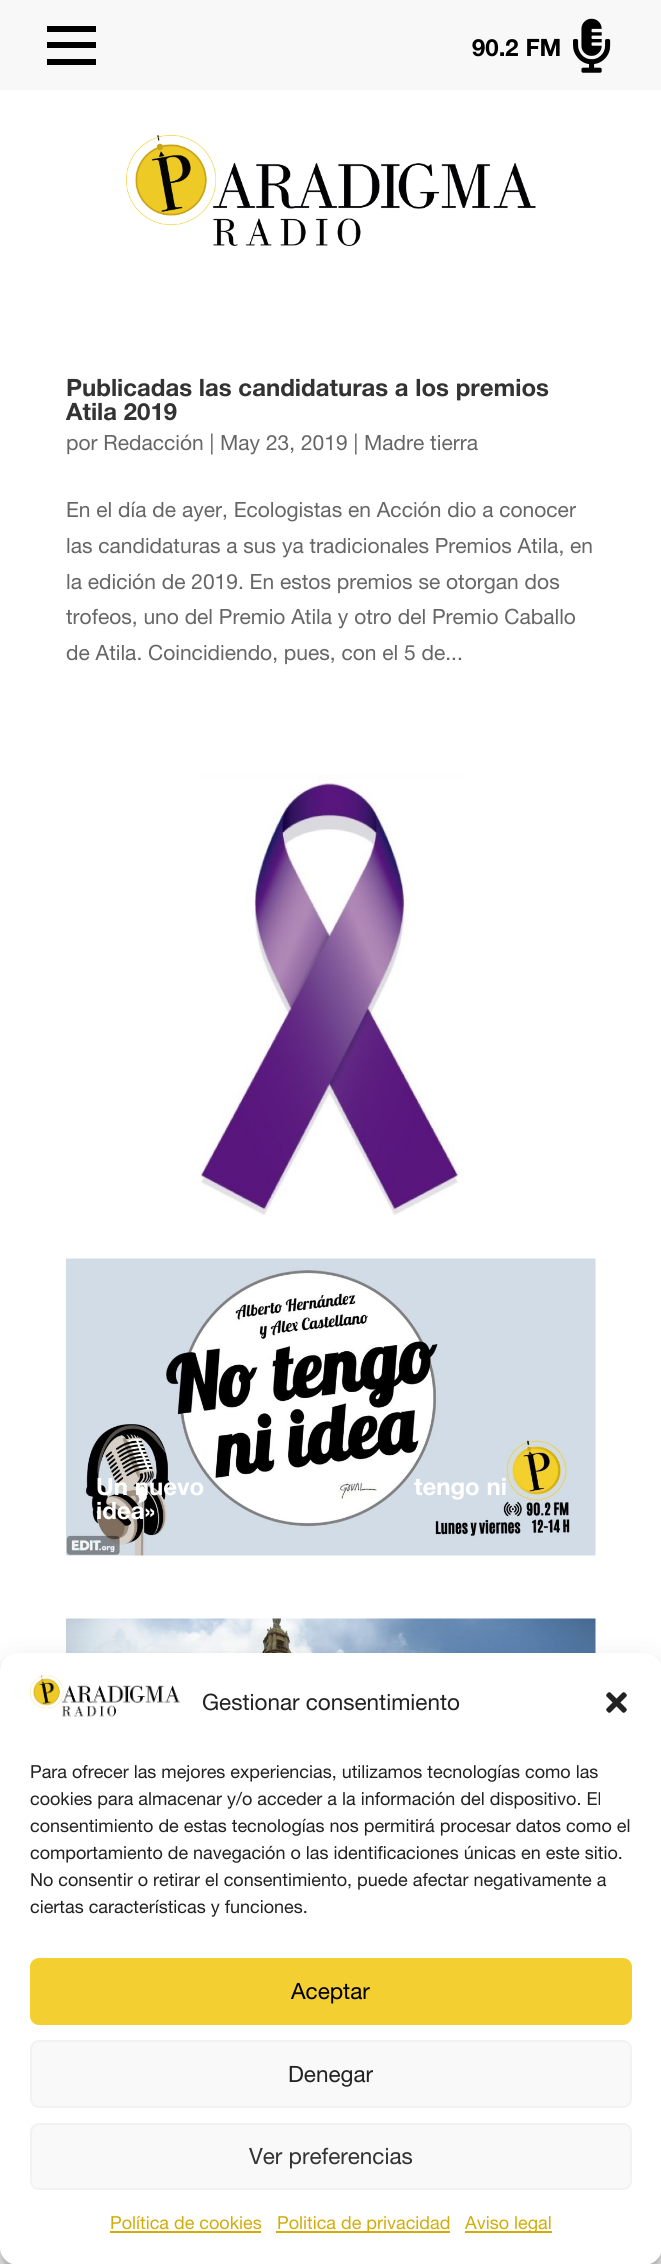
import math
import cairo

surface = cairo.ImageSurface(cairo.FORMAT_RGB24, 661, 2264)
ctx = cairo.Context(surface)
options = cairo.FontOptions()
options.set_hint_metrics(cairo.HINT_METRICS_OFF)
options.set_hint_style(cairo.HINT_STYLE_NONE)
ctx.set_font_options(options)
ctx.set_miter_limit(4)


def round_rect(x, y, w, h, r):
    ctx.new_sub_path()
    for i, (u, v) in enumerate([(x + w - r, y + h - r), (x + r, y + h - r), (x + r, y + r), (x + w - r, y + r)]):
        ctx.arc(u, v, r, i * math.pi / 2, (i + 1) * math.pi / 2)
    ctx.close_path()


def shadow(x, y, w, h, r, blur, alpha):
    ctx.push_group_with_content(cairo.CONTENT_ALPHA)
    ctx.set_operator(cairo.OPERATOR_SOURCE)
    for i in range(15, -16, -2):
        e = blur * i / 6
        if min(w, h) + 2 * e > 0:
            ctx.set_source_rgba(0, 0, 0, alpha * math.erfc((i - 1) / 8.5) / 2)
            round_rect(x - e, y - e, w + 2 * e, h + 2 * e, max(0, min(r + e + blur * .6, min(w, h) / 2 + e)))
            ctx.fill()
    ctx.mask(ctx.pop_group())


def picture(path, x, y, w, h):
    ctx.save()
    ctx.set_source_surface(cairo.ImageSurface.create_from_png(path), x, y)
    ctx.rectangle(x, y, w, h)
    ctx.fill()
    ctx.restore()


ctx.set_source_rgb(1, 1, 1)
ctx.paint()
ctx.set_source_rgb(0.969, 0.969, 0.969)
ctx.rectangle(0, 0, 661, 90)
ctx.fill()
ctx.set_source_rgb(0, 0, 0)
ctx.rectangle(47, 26, 49, 6)
ctx.fill()
ctx.rectangle(47, 42, 49, 6)
ctx.fill()
ctx.rectangle(47, 59, 49, 6)
ctx.fill()
ctx.select_font_face("Helvetica Neue", cairo.FONT_SLANT_NORMAL, cairo.FONT_WEIGHT_BOLD)
ctx.set_font_size(24)
ctx.move_to(472, 56)
ctx.show_text("90.2 FM")
picture("img1.png", 573, 18, 38, 55)
picture("img2.png", 126, 135, 410, 111)
ctx.set_source_rgb(0.2, 0.2, 0.2)
ctx.move_to(66, 396)
ctx.show_text("Publicadas las candidaturas a los premios")
ctx.move_to(66, 420)
ctx.show_text("Atila 2019")
ctx.select_font_face("Helvetica Neue")
ctx.set_font_size(21)
ctx.set_source_rgb(0.4, 0.4, 0.4)
ctx.move_to(66, 450)
ctx.show_text("por Redacción | May 23, 2019 | Madre tierra")
ctx.move_to(66, 517)
ctx.show_text("En el día de ayer, Ecologistas en Acción dio a conocer")
ctx.move_to(66, 553)
ctx.show_text("las candidaturas a sus ya tradicionales Premios Atila, en")
ctx.move_to(66, 589)
ctx.show_text("la edición de 2019. En estos premios se otorgan dos")
ctx.move_to(66, 624)
ctx.show_text("trofeos, uno del Premio Atila y otro del Premio Caballo")
ctx.move_to(66, 660)
ctx.show_text("de Atila. Coincidiendo, pues, con el 5 de...")
picture("img3.png", 200, 774, 264, 441)
picture("img4.png", 66, 1258, 530, 298)
ctx.select_font_face("Helvetica Neue", cairo.FONT_SLANT_NORMAL, cairo.FONT_WEIGHT_BOLD)
ctx.set_font_size(24)
ctx.set_source_rgb(1, 1, 1)
ctx.move_to(96, 1495)
ctx.show_text("Un nuevo")
ctx.move_to(414, 1495)
ctx.show_text("tengo ni")
ctx.move_to(96, 1519)
ctx.show_text("idea»")
picture("img5.png", 66, 1618, 530, 35)
ctx.set_source_rgb(0, 0, 0)
shadow(0, 1662, 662, 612, 18, 4.5, 0.23)
shadow(0, 1668, 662, 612, 18, 15, 0.19)
ctx.set_source_rgb(1, 1, 1)
round_rect(0, 1653, 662, 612, 18)
ctx.fill()
picture("img6.png", 30, 1675, 150, 42)
ctx.select_font_face("Helvetica Neue")
ctx.set_font_size(22.5)
ctx.set_source_rgb(0.133, 0.133, 0.133)
ctx.move_to(202, 1710)
ctx.show_text("Gestionar consentimiento")
picture("img7.png", 606, 1692, 21, 21)
ctx.set_font_size(18)
ctx.move_to(30, 1778)
ctx.show_text("Para ofrecer las mejores experiencias, utilizamos tecnologías como las")
ctx.move_to(30, 1805)
ctx.show_text("cookies para almacenar y/o acceder a la información del dispositivo. El")
ctx.move_to(30, 1832)
ctx.show_text("consentimiento de estas tecnologías nos permitirá procesar datos como el")
ctx.move_to(30, 1859)
ctx.show_text("comportamiento de navegación o las identificaciones únicas en este sitio.")
ctx.move_to(30, 1886)
ctx.show_text("No consentir o retirar el consentimiento, puede afectar negativamente a")
ctx.move_to(30, 1913)
ctx.show_text("ciertas características y funciones.")
ctx.set_source_rgb(0.957, 0.812, 0.192)
round_rect(31, 1959, 600, 65, 8)
ctx.fill_preserve()
ctx.stroke()
ctx.set_font_size(22.5)
ctx.set_source_rgb(0, 0, 0)
ctx.move_to(291, 1999)
ctx.show_text("Aceptar")
ctx.set_source_rgb(0.976, 0.976, 0.976)
round_rect(31, 2041, 600, 66, 8)
ctx.fill_preserve()
ctx.set_source_rgb(0.949, 0.949, 0.949)
ctx.stroke()
ctx.set_source_rgb(0.133, 0.133, 0.133)
ctx.move_to(288, 2082)
ctx.show_text("Denegar")
ctx.set_source_rgb(0.976, 0.976, 0.976)
round_rect(31, 2124, 600, 65, 8)
ctx.fill_preserve()
ctx.set_source_rgb(0.949, 0.949, 0.949)
ctx.stroke()
ctx.set_source_rgb(0.2, 0.2, 0.2)
ctx.move_to(249, 2164)
ctx.show_text("Ver preferencias")
ctx.set_font_size(18)
ctx.set_source_rgb(0.827, 0.675, 0.043)
ctx.move_to(110, 2229)
ctx.show_text("Política de cookies")
ctx.rectangle(110, 2231, 151, 2)
ctx.fill()
ctx.rectangle(276, 2231, 174, 2)
ctx.fill()
ctx.move_to(277, 2229)
ctx.show_text("Politica de privacidad")
ctx.rectangle(465, 2231, 87, 2)
ctx.fill()
ctx.move_to(465, 2229)
ctx.show_text("Aviso legal")
surface.write_to_png("page.png")
